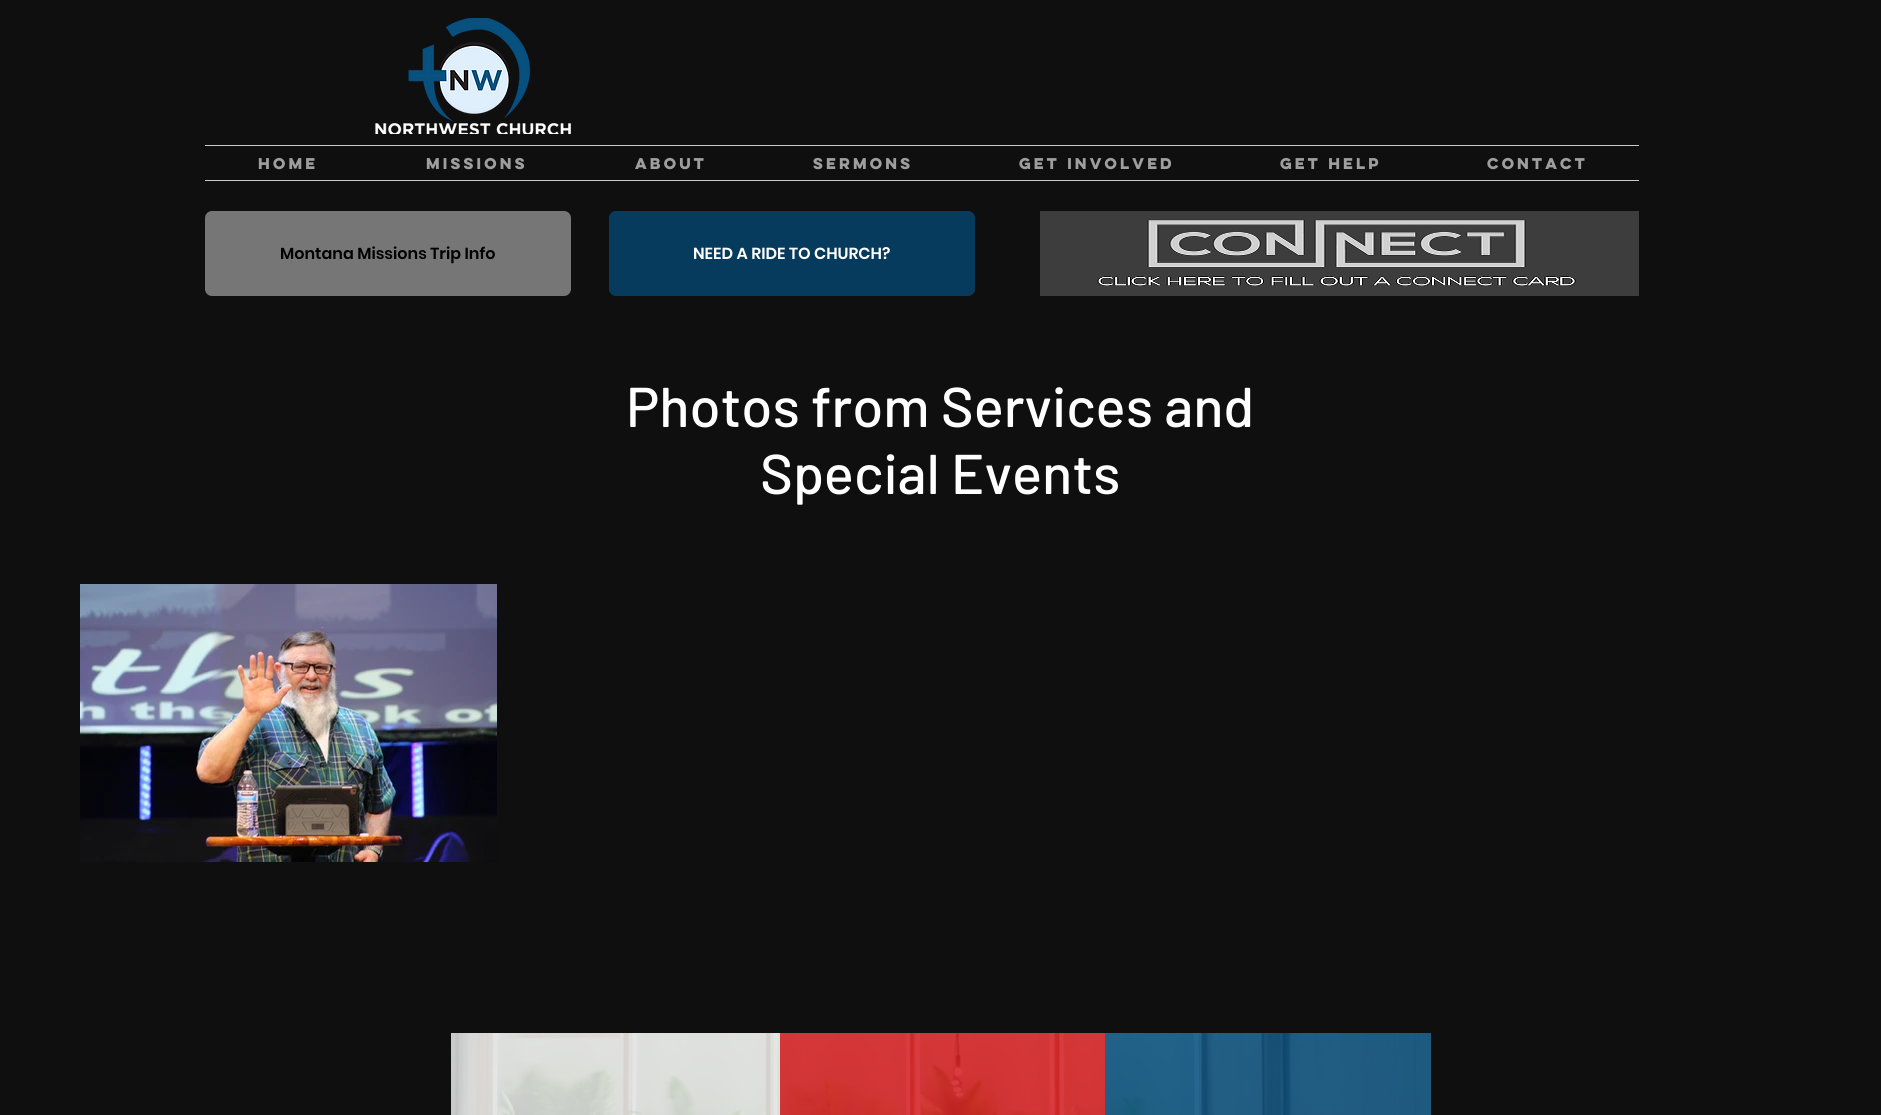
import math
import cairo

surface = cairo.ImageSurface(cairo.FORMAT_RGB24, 1881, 1115)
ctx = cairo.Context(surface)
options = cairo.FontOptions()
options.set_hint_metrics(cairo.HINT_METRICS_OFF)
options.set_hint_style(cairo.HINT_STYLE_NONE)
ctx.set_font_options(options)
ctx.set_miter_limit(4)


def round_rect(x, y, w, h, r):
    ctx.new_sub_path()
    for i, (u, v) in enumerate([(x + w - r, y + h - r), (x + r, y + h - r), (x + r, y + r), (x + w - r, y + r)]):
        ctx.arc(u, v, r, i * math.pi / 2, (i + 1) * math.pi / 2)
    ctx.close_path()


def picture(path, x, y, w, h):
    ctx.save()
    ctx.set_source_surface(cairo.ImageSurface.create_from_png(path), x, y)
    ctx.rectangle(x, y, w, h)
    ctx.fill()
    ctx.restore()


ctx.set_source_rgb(0.059, 0.059, 0.059)
ctx.paint()
picture("img1.png", 375, 18, 197, 116)
ctx.set_source_rgb(0.792, 0.792, 0.792)
ctx.rectangle(205, 145, 1434, 1)
ctx.fill()
ctx.rectangle(205, 180, 1434, 1)
ctx.fill()
ctx.select_font_face("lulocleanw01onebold", cairo.FONT_SLANT_NORMAL, cairo.FONT_WEIGHT_BOLD)
ctx.set_font_size(14)
ctx.set_source_rgb(0.62, 0.62, 0.62)
ctx.move_to(258, 169)
ctx.show_text("Home")
ctx.move_to(426, 169)
ctx.show_text("Missions")
ctx.move_to(635, 169)
ctx.show_text("About")
ctx.move_to(813, 169)
ctx.show_text("Sermons")
ctx.move_to(1019, 169)
ctx.show_text("Get Involved")
ctx.move_to(1280, 169)
ctx.show_text("Get Help")
ctx.move_to(1487, 169)
ctx.show_text("Contact")
ctx.set_source_rgb(0.463, 0.463, 0.463)
round_rect(205, 211, 366, 85, 7)
ctx.fill()
ctx.select_font_face("Poppins SemiBold")
ctx.set_font_size(16)
ctx.set_source_rgb(0, 0, 0)
ctx.move_to(280, 259)
ctx.show_text("Montana Missions Trip Info")
ctx.set_source_rgb(0.031, 0.231, 0.365)
round_rect(609, 211, 366, 85, 7)
ctx.fill()
ctx.set_source_rgb(1, 1, 1)
ctx.move_to(693, 259)
ctx.show_text("NEED A RIDE TO CHURCH?")
picture("img2.png", 1040, 211, 599, 85)
ctx.select_font_face("Barlow Medium")
ctx.set_font_size(56)
ctx.move_to(626, 427)
ctx.show_text("Photos from Services and")
ctx.move_to(760, 494)
ctx.show_text("Special Events")
picture("img3.png", 80, 584, 417, 278)
picture("img4.png", 451, 1033, 980, 82)
ctx.set_source_rgba(0.941, 0.941, 0.941, 0.8)
ctx.rectangle(451, 1033, 329, 82)
ctx.fill()
ctx.set_source_rgba(0.886, 0.11, 0.129, 0.8)
ctx.rectangle(780, 1033, 325, 82)
ctx.fill()
ctx.set_source_rgba(0.016, 0.318, 0.518, 0.8)
ctx.rectangle(1105, 1033, 326, 82)
ctx.fill()
surface.write_to_png("page.png")
